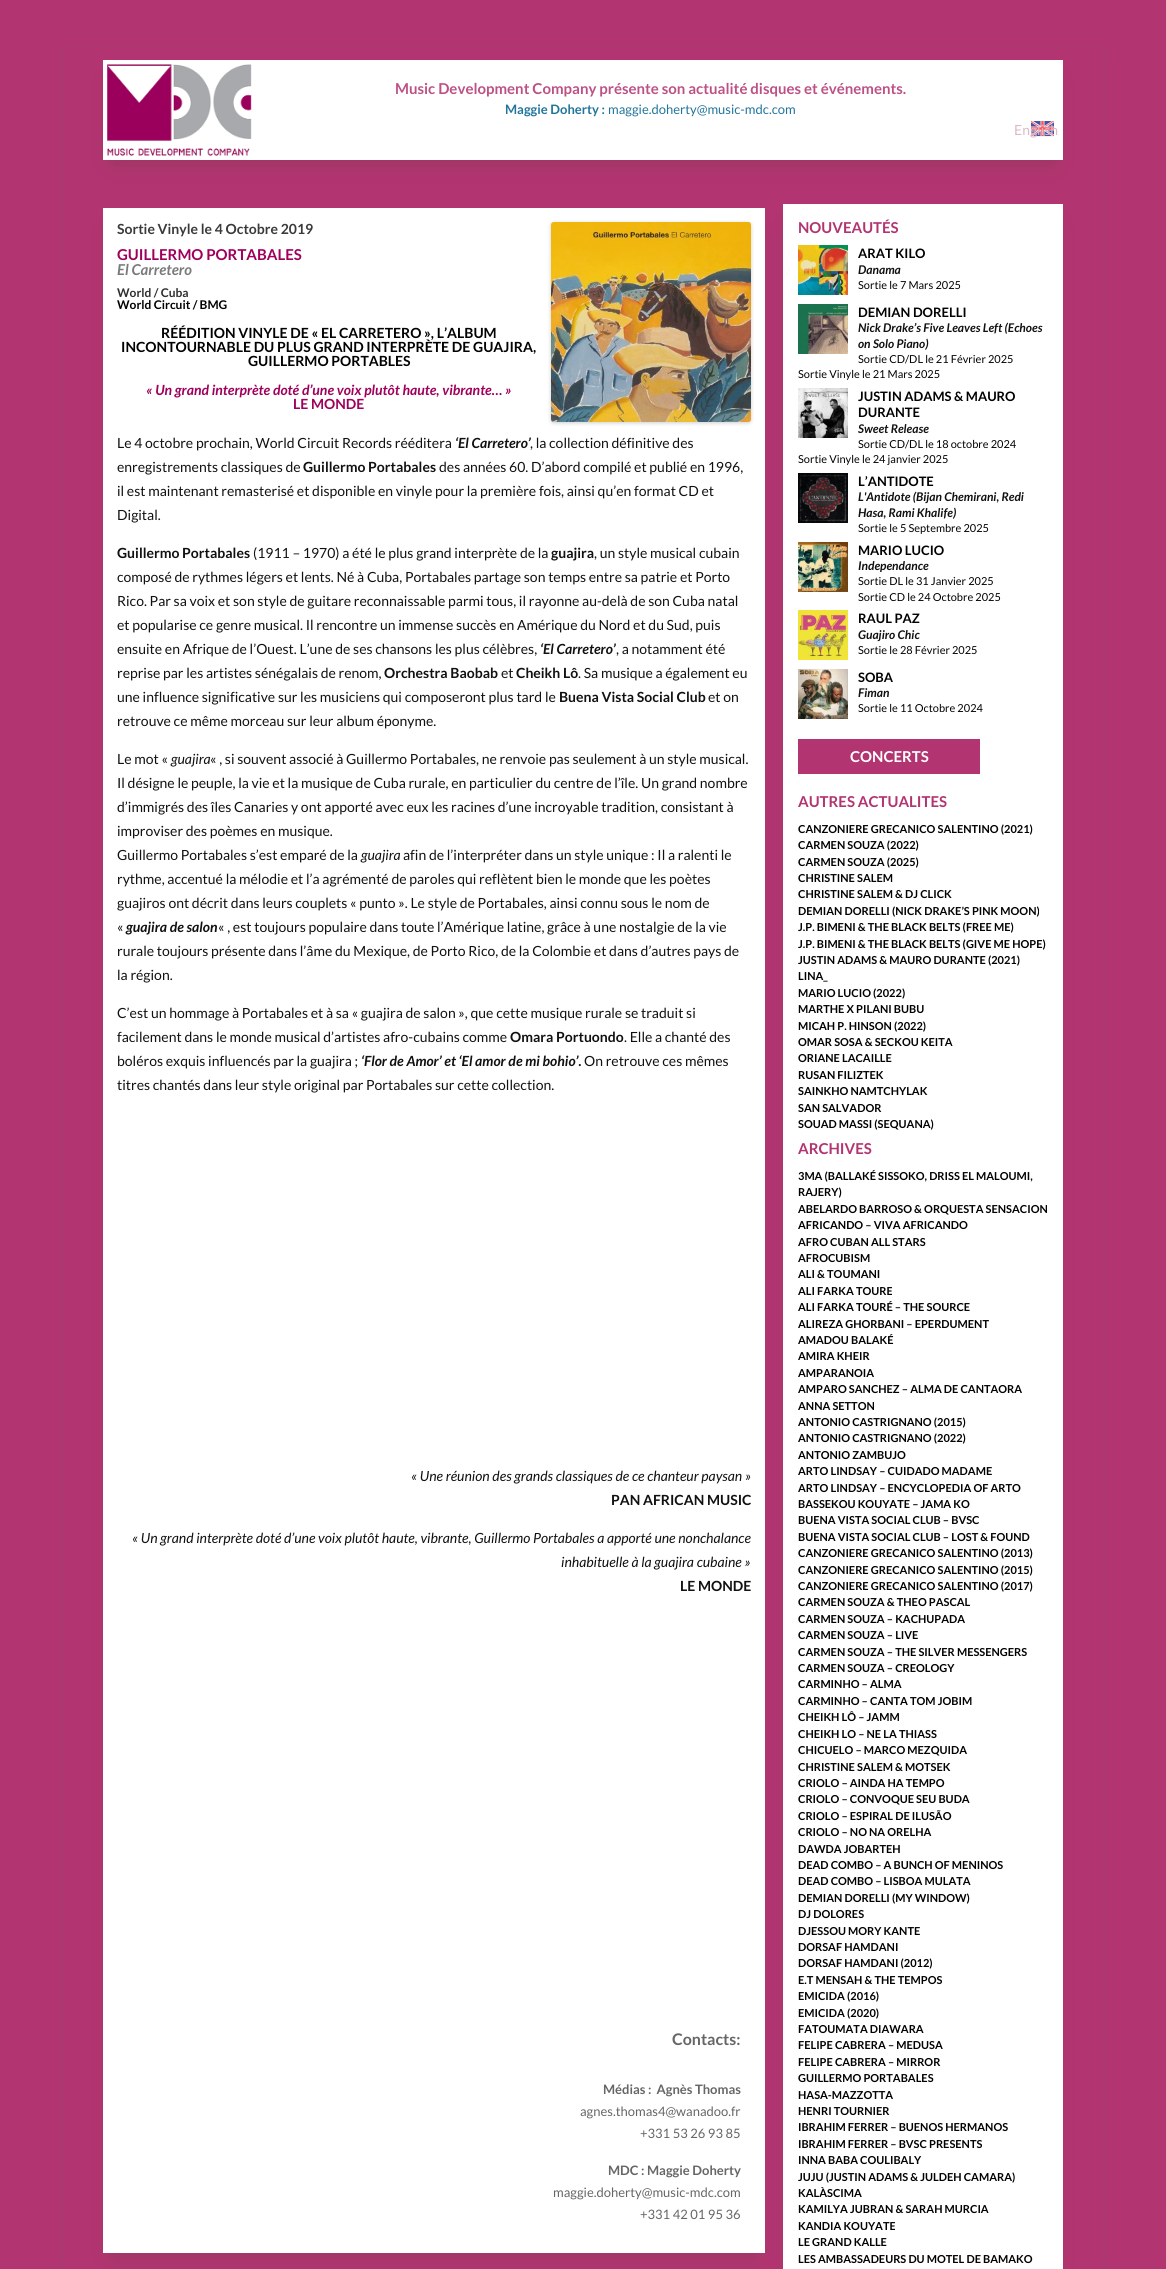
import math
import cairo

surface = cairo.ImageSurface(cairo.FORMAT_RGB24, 1166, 2269)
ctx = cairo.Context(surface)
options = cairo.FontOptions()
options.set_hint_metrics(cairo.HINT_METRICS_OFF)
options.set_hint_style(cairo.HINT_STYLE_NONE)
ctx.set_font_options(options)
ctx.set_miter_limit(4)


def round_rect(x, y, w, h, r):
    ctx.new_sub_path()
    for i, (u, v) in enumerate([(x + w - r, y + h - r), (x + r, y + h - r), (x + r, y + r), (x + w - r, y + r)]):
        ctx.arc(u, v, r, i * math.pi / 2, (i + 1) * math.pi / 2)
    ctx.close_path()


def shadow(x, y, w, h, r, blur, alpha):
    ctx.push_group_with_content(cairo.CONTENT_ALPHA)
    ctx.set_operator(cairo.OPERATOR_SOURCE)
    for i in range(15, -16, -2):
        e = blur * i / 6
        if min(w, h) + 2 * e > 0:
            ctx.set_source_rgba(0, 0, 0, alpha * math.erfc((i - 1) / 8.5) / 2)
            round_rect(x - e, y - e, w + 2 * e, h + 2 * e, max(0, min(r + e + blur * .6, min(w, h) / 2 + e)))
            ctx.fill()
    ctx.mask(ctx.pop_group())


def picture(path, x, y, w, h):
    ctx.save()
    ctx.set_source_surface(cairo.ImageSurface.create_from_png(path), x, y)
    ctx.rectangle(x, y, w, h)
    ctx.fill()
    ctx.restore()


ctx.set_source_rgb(0.698, 0.204, 0.443)
ctx.paint()
ctx.save()
ctx.set_fill_rule(cairo.FILL_RULE_EVEN_ODD)
ctx.new_path()
ctx.move_to(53, 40)
ctx.line_to(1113, 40)
ctx.line_to(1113, 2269)
ctx.line_to(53, 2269)
ctx.close_path()
ctx.move_to(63, 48)
ctx.line_to(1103, 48)
ctx.line_to(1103, 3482)
ctx.line_to(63, 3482)
ctx.close_path()
ctx.clip()
ctx.set_source_rgb(0.392, 0.392, 0.392)
shadow(63, 50, 1040, 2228, 0, 3, 0.3)
ctx.restore()
ctx.set_source_rgb(0.318, 0.251, 0.192)
shadow(113, 82, 940, 80, 0, 10, 0.3)
ctx.set_source_rgb(1, 1, 1)
ctx.rectangle(103, 60, 960, 100)
ctx.fill()
picture("img1.png", 107, 64, 145, 92)
ctx.select_font_face("Lato", cairo.FONT_SLANT_NORMAL, cairo.FONT_WEIGHT_BOLD)
ctx.set_font_size(15)
ctx.set_source_rgb(0.741, 0.318, 0.522)
ctx.move_to(395, 94)
ctx.show_text("Music Development Company présente son actualité disques et événements.")
ctx.set_font_size(13)
ctx.set_source_rgb(0.129, 0.459, 0.608)
ctx.move_to(505, 114)
ctx.show_text("Maggie Doherty :")
ctx.select_font_face("Lato")
ctx.move_to(608, 114)
ctx.show_text("maggie.doherty@music-mdc.com")
picture("img2.png", 1031, 121, 23, 16)
ctx.set_font_size(14)
ctx.set_source_rgb(0.875, 0.722, 0.784)
ctx.move_to(1014, 135)
ctx.show_text("English")
ctx.set_source_rgb(0.318, 0.251, 0.192)
shadow(113, 230, 642, 2025, 0, 10, 0.3)
ctx.set_source_rgb(1, 1, 1)
ctx.rectangle(103, 208, 662, 2045)
ctx.fill()
ctx.select_font_face("Lato", cairo.FONT_SLANT_NORMAL, cairo.FONT_WEIGHT_BOLD)
ctx.set_source_rgb(0.227, 0.227, 0.227)
ctx.move_to(117, 234)
ctx.show_text("Sortie Vinyle le 4 Octobre 2019")
ctx.set_source_rgb(0, 0, 0)
shadow(551, 223, 200, 200, 3, 2, 0.2)
picture("img3.png", 551, 222, 200, 200)
ctx.set_font_size(15)
ctx.set_source_rgb(0.624, 0, 0.361)
ctx.move_to(117, 260)
ctx.show_text("GUILLERMO PORTABALES")
ctx.select_font_face("Lato", cairo.FONT_SLANT_ITALIC, cairo.FONT_WEIGHT_BOLD)
ctx.set_source_rgb(0.478, 0.478, 0.478)
ctx.move_to(117, 275)
ctx.show_text("El Carretero")
ctx.select_font_face("Lato", cairo.FONT_SLANT_NORMAL, cairo.FONT_WEIGHT_BOLD)
ctx.set_font_size(12)
ctx.set_source_rgb(0.18, 0.18, 0.18)
ctx.move_to(117, 297)
ctx.show_text("World / Cuba")
ctx.set_source_rgb(0.004, 0.004, 0.004)
ctx.move_to(117, 309)
ctx.show_text("World Circuit / BMG")
ctx.set_font_size(14)
ctx.move_to(161, 338)
ctx.show_text("RÉÉDITION VINYLE DE « EL CARRETERO », L’ALBUM")
ctx.move_to(121, 352)
ctx.show_text("INCONTOURNABLE DU PLUS GRAND INTERPRÈTE DE GUAJIRA,")
ctx.move_to(248, 366)
ctx.show_text("GUILLERMO PORTABLES")
ctx.select_font_face("Lato", cairo.FONT_SLANT_ITALIC, cairo.FONT_WEIGHT_BOLD)
ctx.set_source_rgb(0.624, 0, 0.361)
ctx.move_to(146, 395)
ctx.show_text("« Un grand interprète doté d’une voix plutôt haute, vibrante… »")
ctx.select_font_face("Lato", cairo.FONT_SLANT_NORMAL, cairo.FONT_WEIGHT_BOLD)
ctx.move_to(293, 409)
ctx.show_text("LE MONDE")
ctx.select_font_face("Lato")
ctx.set_source_rgb(0.067, 0.067, 0.067)
ctx.move_to(117, 448)
ctx.show_text("Le 4 octobre prochain, World Circuit Records rééditera")
ctx.select_font_face("Lato", cairo.FONT_SLANT_ITALIC, cairo.FONT_WEIGHT_BOLD)
ctx.move_to(455, 448)
ctx.show_text("‘El Carretero’")
ctx.select_font_face("Lato")
ctx.move_to(530, 448)
ctx.show_text(", la collection définitive des")
ctx.move_to(117, 472)
ctx.show_text("enregistrements classiques de")
ctx.select_font_face("Lato", cairo.FONT_SLANT_NORMAL, cairo.FONT_WEIGHT_BOLD)
ctx.move_to(303, 472)
ctx.show_text("Guillermo Portabales")
ctx.select_font_face("Lato")
ctx.move_to(439, 472)
ctx.show_text("des années 60. D’abord compilé et publié en 1996,")
ctx.move_to(117, 496)
ctx.show_text("il est maintenant remasterisé et disponible en vinyle pour la première fois, ainsi qu’en format CD et")
ctx.move_to(117, 520)
ctx.show_text("Digital.")
ctx.select_font_face("Lato", cairo.FONT_SLANT_NORMAL, cairo.FONT_WEIGHT_BOLD)
ctx.move_to(117, 558)
ctx.show_text("Guillermo Portabales")
ctx.select_font_face("Lato")
ctx.move_to(253, 558)
ctx.show_text("(1911 – 1970) a été le plus grand interprète de la")
ctx.select_font_face("Lato", cairo.FONT_SLANT_NORMAL, cairo.FONT_WEIGHT_BOLD)
ctx.move_to(551, 558)
ctx.show_text("guajira")
ctx.select_font_face("Lato")
ctx.move_to(594, 558)
ctx.show_text(", un style musical cubain")
ctx.move_to(117, 582)
ctx.show_text("composé de rythmes légers et lents. Né à Cuba, Portabales partage son temps entre sa patrie et Porto")
ctx.move_to(117, 606)
ctx.show_text("Rico. Par sa voix et son style de guitare reconnaissable parmi tous, il rayonne au-delà de son Cuba natal")
ctx.move_to(117, 630)
ctx.show_text("et popularise ce genre musical. Il rencontre un immense succès en Amérique du Nord et du Sud, puis")
ctx.move_to(117, 654)
ctx.show_text("ensuite en Afrique de l’Ouest. L’une de ses chansons les plus célèbres,")
ctx.select_font_face("Lato", cairo.FONT_SLANT_ITALIC, cairo.FONT_WEIGHT_BOLD)
ctx.move_to(540, 654)
ctx.show_text("‘El Carretero’")
ctx.select_font_face("Lato")
ctx.move_to(616, 654)
ctx.show_text(", a notamment été")
ctx.move_to(117, 678)
ctx.show_text("reprise par les artistes sénégalais de renom,")
ctx.select_font_face("Lato", cairo.FONT_SLANT_NORMAL, cairo.FONT_WEIGHT_BOLD)
ctx.move_to(384, 678)
ctx.show_text("Orchestra Baobab")
ctx.select_font_face("Lato")
ctx.move_to(501, 678)
ctx.show_text("et")
ctx.select_font_face("Lato", cairo.FONT_SLANT_NORMAL, cairo.FONT_WEIGHT_BOLD)
ctx.move_to(516, 678)
ctx.show_text("Cheikh Lô")
ctx.select_font_face("Lato")
ctx.move_to(578, 678)
ctx.show_text(". Sa musique a également eu")
ctx.move_to(117, 702)
ctx.show_text("une influence significative sur les musiciens qui composeront plus tard le")
ctx.select_font_face("Lato", cairo.FONT_SLANT_NORMAL, cairo.FONT_WEIGHT_BOLD)
ctx.move_to(559, 702)
ctx.show_text("Buena Vista Social Club")
ctx.select_font_face("Lato")
ctx.move_to(708, 702)
ctx.show_text("et on")
ctx.move_to(117, 726)
ctx.show_text("retrouve ce même morceau sur leur album éponyme.")
ctx.move_to(117, 764)
ctx.show_text("Le mot «")
ctx.select_font_face("Lato", cairo.FONT_SLANT_ITALIC)
ctx.move_to(171, 764)
ctx.show_text("guajira")
ctx.select_font_face("Lato")
ctx.move_to(210, 764)
ctx.show_text("« , si souvent associé à Guillermo Portabales, ne renvoie pas seulement à un style musical.")
ctx.move_to(117, 788)
ctx.show_text("Il désigne le peuple, la vie et la musique de Cuba rurale, en particulier du centre de l’île. Un grand nombre")
ctx.move_to(117, 812)
ctx.show_text("d’immigrés des îles Canaries y ont apporté avec eux les racines d’une incroyable tradition, consistant à")
ctx.move_to(117, 836)
ctx.show_text("improviser des poèmes en musique.")
ctx.move_to(117, 860)
ctx.show_text("Guillermo Portabales s’est emparé de la")
ctx.select_font_face("Lato", cairo.FONT_SLANT_ITALIC)
ctx.move_to(361, 860)
ctx.show_text("guajira")
ctx.select_font_face("Lato")
ctx.move_to(403, 860)
ctx.show_text("afin de l’interpréter dans un style unique : Il a ralenti le")
ctx.move_to(117, 884)
ctx.show_text("rythme, accentué la mélodie et l’a agrémenté de paroles qui reflètent bien le monde que les poètes")
ctx.move_to(117, 908)
ctx.show_text("guajiros ont décrit dans leurs couplets « punto ». Le style de Portabales, ainsi connu sous le nom de")
ctx.move_to(117, 932)
ctx.show_text("«")
ctx.select_font_face("Lato", cairo.FONT_SLANT_ITALIC, cairo.FONT_WEIGHT_BOLD)
ctx.move_to(126, 932)
ctx.show_text("guajira de salon")
ctx.select_font_face("Lato")
ctx.move_to(218, 932)
ctx.show_text("« , est toujours populaire dans toute l’Amérique latine, grâce à une nostalgie de la vie")
ctx.move_to(117, 956)
ctx.show_text("rurale toujours présente dans l’âme du Mexique, de Porto Rico, de la Colombie et dans d’autres pays de")
ctx.move_to(117, 980)
ctx.show_text("la région.")
ctx.move_to(117, 1018)
ctx.show_text("C’est un hommage à Portabales et à sa « guajira de salon », que cette musique rurale se traduit si")
ctx.move_to(117, 1042)
ctx.show_text("facilement dans le monde musical d’artistes afro-cubains comme")
ctx.select_font_face("Lato", cairo.FONT_SLANT_NORMAL, cairo.FONT_WEIGHT_BOLD)
ctx.move_to(510, 1042)
ctx.show_text("Omara Portuondo")
ctx.select_font_face("Lato")
ctx.move_to(624, 1042)
ctx.show_text(". Elle a chanté des")
ctx.move_to(117, 1066)
ctx.show_text("boléros exquis influencés par la guajira ;")
ctx.select_font_face("Lato", cairo.FONT_SLANT_ITALIC, cairo.FONT_WEIGHT_BOLD)
ctx.move_to(361, 1066)
ctx.show_text("‘Flor de Amor’ et ‘El amor de mi bohio’.")
ctx.select_font_face("Lato")
ctx.move_to(584, 1066)
ctx.show_text("On retrouve ces mêmes")
ctx.move_to(117, 1090)
ctx.show_text("titres chantés dans leur style original par Portabales sur cette collection.")
ctx.select_font_face("Lato", cairo.FONT_SLANT_ITALIC)
ctx.move_to(411, 1481)
ctx.show_text("« Une réunion des grands classiques de ce chanteur paysan »")
ctx.select_font_face("Lato", cairo.FONT_SLANT_NORMAL, cairo.FONT_WEIGHT_BOLD)
ctx.move_to(611, 1505)
ctx.show_text("PAN AFRICAN MUSIC")
ctx.select_font_face("Lato", cairo.FONT_SLANT_ITALIC)
ctx.move_to(132, 1543)
ctx.show_text("« Un grand interprète doté d’une voix plutôt haute, vibrante, Guillermo Portabales a apporté une nonchalance")
ctx.move_to(561, 1567)
ctx.show_text("inhabituelle à la guajira cubaine »")
ctx.select_font_face("Lato", cairo.FONT_SLANT_NORMAL, cairo.FONT_WEIGHT_BOLD)
ctx.move_to(680, 1591)
ctx.show_text("LE MONDE")
ctx.set_font_size(16)
ctx.set_source_rgb(0.4, 0.4, 0.4)
ctx.move_to(672, 2045)
ctx.show_text("Contacts:")
ctx.set_font_size(13)
ctx.move_to(603, 2094)
ctx.show_text("Médias :  Agnès Thomas")
ctx.select_font_face("Lato")
ctx.move_to(580, 2116)
ctx.show_text("agnes.thomas4@wanadoo.fr")
ctx.move_to(640, 2138)
ctx.show_text("+331 53 26 93 85")
ctx.select_font_face("Lato", cairo.FONT_SLANT_NORMAL, cairo.FONT_WEIGHT_BOLD)
ctx.move_to(608, 2175)
ctx.show_text("MDC : Maggie Doherty")
ctx.select_font_face("Lato")
ctx.move_to(553, 2197)
ctx.show_text("maggie.doherty@music-mdc.com")
ctx.move_to(640, 2219)
ctx.show_text("+331 42 01 95 36")
ctx.set_source_rgb(0.318, 0.251, 0.192)
shadow(793, 226, 260, 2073, 0, 10, 0.3)
ctx.set_source_rgb(1, 1, 1)
ctx.rectangle(783, 204, 280, 2065)
ctx.fill()
ctx.select_font_face("Lato", cairo.FONT_SLANT_NORMAL, cairo.FONT_WEIGHT_BOLD)
ctx.set_font_size(15)
ctx.set_source_rgb(0.698, 0.204, 0.443)
ctx.move_to(798, 233)
ctx.show_text("NOUVEAUTÉS")
picture("img4.png", 798, 245, 50, 50)
ctx.set_font_size(13)
ctx.set_source_rgb(0.004, 0.004, 0.004)
ctx.move_to(858, 258)
ctx.show_text("ARAT KILO")
ctx.select_font_face("Lato", cairo.FONT_SLANT_ITALIC, cairo.FONT_WEIGHT_BOLD)
ctx.set_font_size(12)
ctx.set_source_rgb(0.067, 0.067, 0.067)
ctx.move_to(858, 274)
ctx.show_text("Danama")
ctx.select_font_face("Lato")
ctx.set_font_size(11)
ctx.set_source_rgb(0.004, 0.004, 0.004)
ctx.move_to(858, 289)
ctx.show_text("Sortie le 7 Mars 2025")
picture("img5.png", 798, 304, 50, 50)
ctx.select_font_face("Lato", cairo.FONT_SLANT_NORMAL, cairo.FONT_WEIGHT_BOLD)
ctx.set_font_size(13)
ctx.move_to(858, 317)
ctx.show_text("DEMIAN DORELLI")
ctx.select_font_face("Lato", cairo.FONT_SLANT_ITALIC, cairo.FONT_WEIGHT_BOLD)
ctx.set_font_size(12)
ctx.set_source_rgb(0.067, 0.067, 0.067)
ctx.move_to(858, 332)
ctx.show_text("Nick Drake’s Five Leaves Left (Echoes")
ctx.move_to(858, 348)
ctx.show_text("on Solo Piano)")
ctx.select_font_face("Lato")
ctx.set_font_size(11)
ctx.set_source_rgb(0.004, 0.004, 0.004)
ctx.move_to(858, 363)
ctx.show_text("Sortie CD/DL le 21 Février 2025")
ctx.move_to(798, 378)
ctx.show_text("Sortie Vinyle le 21 Mars 2025")
picture("img6.png", 798, 388, 50, 50)
ctx.select_font_face("Lato", cairo.FONT_SLANT_NORMAL, cairo.FONT_WEIGHT_BOLD)
ctx.set_font_size(13)
ctx.move_to(858, 401)
ctx.show_text("JUSTIN ADAMS & MAURO")
ctx.move_to(858, 417)
ctx.show_text("DURANTE")
ctx.select_font_face("Lato", cairo.FONT_SLANT_ITALIC, cairo.FONT_WEIGHT_BOLD)
ctx.set_font_size(12)
ctx.set_source_rgb(0.067, 0.067, 0.067)
ctx.move_to(858, 433)
ctx.show_text("Sweet Release")
ctx.select_font_face("Lato")
ctx.set_font_size(11)
ctx.set_source_rgb(0.004, 0.004, 0.004)
ctx.move_to(858, 448)
ctx.show_text("Sortie CD/DL le 18 octobre 2024")
ctx.move_to(798, 463)
ctx.show_text("Sortie Vinyle le 24 janvier 2025")
picture("img7.png", 798, 473, 50, 50)
ctx.select_font_face("Lato", cairo.FONT_SLANT_NORMAL, cairo.FONT_WEIGHT_BOLD)
ctx.set_font_size(13)
ctx.move_to(858, 486)
ctx.show_text("L’ANTIDOTE")
ctx.select_font_face("Lato", cairo.FONT_SLANT_ITALIC, cairo.FONT_WEIGHT_BOLD)
ctx.set_font_size(12)
ctx.set_source_rgb(0.067, 0.067, 0.067)
ctx.move_to(858, 501)
ctx.show_text("L'Antidote (Bijan Chemirani, Redi")
ctx.move_to(858, 517)
ctx.show_text("Hasa, Rami Khalife)")
ctx.select_font_face("Lato")
ctx.set_font_size(11)
ctx.set_source_rgb(0.004, 0.004, 0.004)
ctx.move_to(858, 532)
ctx.show_text("Sortie le 5 Septembre 2025")
picture("img8.png", 798, 542, 50, 50)
ctx.select_font_face("Lato", cairo.FONT_SLANT_NORMAL, cairo.FONT_WEIGHT_BOLD)
ctx.set_font_size(13)
ctx.move_to(858, 555)
ctx.show_text("MARIO LUCIO")
ctx.select_font_face("Lato", cairo.FONT_SLANT_ITALIC, cairo.FONT_WEIGHT_BOLD)
ctx.set_font_size(12)
ctx.set_source_rgb(0.067, 0.067, 0.067)
ctx.move_to(858, 570)
ctx.show_text("Independance")
ctx.select_font_face("Lato")
ctx.set_font_size(11)
ctx.set_source_rgb(0.004, 0.004, 0.004)
ctx.move_to(858, 585)
ctx.show_text("Sortie DL le 31 Janvier 2025")
ctx.move_to(858, 601)
ctx.show_text("Sortie CD le 24 Octobre 2025")
picture("img9.png", 798, 610, 50, 50)
ctx.select_font_face("Lato", cairo.FONT_SLANT_NORMAL, cairo.FONT_WEIGHT_BOLD)
ctx.set_font_size(13)
ctx.move_to(858, 623)
ctx.show_text("RAUL PAZ")
ctx.select_font_face("Lato", cairo.FONT_SLANT_ITALIC, cairo.FONT_WEIGHT_BOLD)
ctx.set_font_size(12)
ctx.set_source_rgb(0.067, 0.067, 0.067)
ctx.move_to(858, 639)
ctx.show_text("Guajiro Chic")
ctx.select_font_face("Lato")
ctx.set_font_size(11)
ctx.set_source_rgb(0.004, 0.004, 0.004)
ctx.move_to(858, 654)
ctx.show_text("Sortie le 28 Février 2025")
picture("img10.png", 798, 669, 50, 50)
ctx.select_font_face("Lato", cairo.FONT_SLANT_NORMAL, cairo.FONT_WEIGHT_BOLD)
ctx.set_font_size(13)
ctx.move_to(858, 682)
ctx.show_text("SOBA")
ctx.select_font_face("Lato", cairo.FONT_SLANT_ITALIC, cairo.FONT_WEIGHT_BOLD)
ctx.set_font_size(12)
ctx.set_source_rgb(0.067, 0.067, 0.067)
ctx.move_to(858, 697)
ctx.show_text("Fiman")
ctx.select_font_face("Lato")
ctx.set_font_size(11)
ctx.set_source_rgb(0.004, 0.004, 0.004)
ctx.move_to(858, 712)
ctx.show_text("Sortie le 11 Octobre 2024")
ctx.set_source_rgb(0.698, 0.204, 0.443)
ctx.rectangle(798, 739, 182, 35)
ctx.fill()
ctx.select_font_face("Lato", cairo.FONT_SLANT_NORMAL, cairo.FONT_WEIGHT_BOLD)
ctx.set_font_size(15)
ctx.set_source_rgb(1, 1, 1)
ctx.move_to(850, 762)
ctx.show_text("CONCERTS")
ctx.set_source_rgb(0.698, 0.204, 0.443)
ctx.move_to(798, 807)
ctx.show_text("AUTRES ACTUALITES")
ctx.set_font_size(11)
ctx.set_source_rgb(0.004, 0.004, 0.004)
ctx.move_to(798, 833)
ctx.show_text("CANZONIERE GRECANICO SALENTINO (2021)")
ctx.move_to(798, 849)
ctx.show_text("CARMEN SOUZA (2022)")
ctx.move_to(798, 866)
ctx.show_text("CARMEN SOUZA (2025)")
ctx.move_to(798, 882)
ctx.show_text("CHRISTINE SALEM")
ctx.move_to(798, 898)
ctx.show_text("CHRISTINE SALEM & DJ CLICK")
ctx.move_to(798, 915)
ctx.show_text("DEMIAN DORELLI (NICK DRAKE’S PINK MOON)")
ctx.move_to(798, 931)
ctx.show_text("J.P. BIMENI & THE BLACK BELTS (FREE ME)")
ctx.move_to(798, 948)
ctx.show_text("J.P. BIMENI & THE BLACK BELTS (GIVE ME HOPE)")
ctx.move_to(798, 964)
ctx.show_text("JUSTIN ADAMS & MAURO DURANTE (2021)")
ctx.move_to(798, 980)
ctx.show_text("LINA_")
ctx.move_to(798, 997)
ctx.show_text("MARIO LUCIO (2022)")
ctx.move_to(798, 1013)
ctx.show_text("MARTHE X PILANI BUBU")
ctx.move_to(798, 1030)
ctx.show_text("MICAH P. HINSON (2022)")
ctx.move_to(798, 1046)
ctx.show_text("OMAR SOSA & SECKOU KEITA")
ctx.move_to(798, 1062)
ctx.show_text("ORIANE LACAILLE")
ctx.move_to(798, 1079)
ctx.show_text("RUSAN FILIZTEK")
ctx.move_to(798, 1095)
ctx.show_text("SAINKHO NAMTCHYLAK")
ctx.move_to(798, 1112)
ctx.show_text("SAN SALVADOR")
ctx.move_to(798, 1128)
ctx.show_text("SOUAD MASSI (SEQUANA)")
ctx.set_font_size(15)
ctx.set_source_rgb(0.698, 0.204, 0.443)
ctx.move_to(798, 1154)
ctx.show_text("ARCHIVES")
ctx.set_font_size(11)
ctx.set_source_rgb(0.004, 0.004, 0.004)
ctx.move_to(798, 1180)
ctx.show_text("3MA (BALLAKÉ SISSOKO, DRISS EL MALOUMI,")
ctx.move_to(798, 1196)
ctx.show_text("RAJERY)")
ctx.move_to(798, 1213)
ctx.show_text("ABELARDO BARROSO & ORQUESTA SENSACION")
ctx.move_to(798, 1229)
ctx.show_text("AFRICANDO – VIVA AFRICANDO")
ctx.move_to(798, 1246)
ctx.show_text("AFRO CUBAN ALL STARS")
ctx.move_to(798, 1262)
ctx.show_text("AFROCUBISM")
ctx.move_to(798, 1278)
ctx.show_text("ALI & TOUMANI")
ctx.move_to(798, 1295)
ctx.show_text("ALI FARKA TOURE")
ctx.move_to(798, 1311)
ctx.show_text("ALI FARKA TOURÉ – THE SOURCE")
ctx.move_to(798, 1328)
ctx.show_text("ALIREZA GHORBANI – EPERDUMENT")
ctx.move_to(798, 1344)
ctx.show_text("AMADOU BALAKÉ")
ctx.move_to(798, 1360)
ctx.show_text("AMIRA KHEIR")
ctx.move_to(798, 1377)
ctx.show_text("AMPARANOIA")
ctx.move_to(798, 1393)
ctx.show_text("AMPARO SANCHEZ – ALMA DE CANTAORA")
ctx.move_to(798, 1410)
ctx.show_text("ANNA SETTON")
ctx.move_to(798, 1426)
ctx.show_text("ANTONIO CASTRIGNANO (2015)")
ctx.move_to(798, 1442)
ctx.show_text("ANTONIO CASTRIGNANO (2022)")
ctx.move_to(798, 1459)
ctx.show_text("ANTONIO ZAMBUJO")
ctx.move_to(798, 1475)
ctx.show_text("ARTO LINDSAY – CUIDADO MADAME")
ctx.move_to(798, 1492)
ctx.show_text("ARTO LINDSAY – ENCYCLOPEDIA OF ARTO")
ctx.move_to(798, 1508)
ctx.show_text("BASSEKOU KOUYATE – JAMA KO")
ctx.move_to(798, 1524)
ctx.show_text("BUENA VISTA SOCIAL CLUB – BVSC")
ctx.move_to(798, 1541)
ctx.show_text("BUENA VISTA SOCIAL CLUB – LOST & FOUND")
ctx.move_to(798, 1557)
ctx.show_text("CANZONIERE GRECANICO SALENTINO (2013)")
ctx.move_to(798, 1574)
ctx.show_text("CANZONIERE GRECANICO SALENTINO (2015)")
ctx.move_to(798, 1590)
ctx.show_text("CANZONIERE GRECANICO SALENTINO (2017)")
ctx.move_to(798, 1606)
ctx.show_text("CARMEN SOUZA & THEO PASCAL")
ctx.move_to(798, 1623)
ctx.show_text("CARMEN SOUZA – KACHUPADA")
ctx.move_to(798, 1639)
ctx.show_text("CARMEN SOUZA – LIVE")
ctx.move_to(798, 1656)
ctx.show_text("CARMEN SOUZA – THE SILVER MESSENGERS")
ctx.move_to(798, 1672)
ctx.show_text("CARMEN SOUZA – CREOLOGY")
ctx.move_to(798, 1688)
ctx.show_text("CARMINHO – ALMA")
ctx.move_to(798, 1705)
ctx.show_text("CARMINHO – CANTA TOM JOBIM")
ctx.move_to(798, 1721)
ctx.show_text("CHEIKH LÔ – JAMM")
ctx.move_to(798, 1738)
ctx.show_text("CHEIKH LO – NE LA THIASS")
ctx.move_to(798, 1754)
ctx.show_text("CHICUELO – MARCO MEZQUIDA")
ctx.move_to(798, 1771)
ctx.show_text("CHRISTINE SALEM & MOTSEK")
ctx.move_to(798, 1787)
ctx.show_text("CRIOLO – AINDA HA TEMPO")
ctx.move_to(798, 1803)
ctx.show_text("CRIOLO – CONVOQUE SEU BUDA")
ctx.move_to(798, 1820)
ctx.show_text("CRIOLO – ESPIRAL DE ILUSÃO")
ctx.move_to(798, 1836)
ctx.show_text("CRIOLO – NO NA ORELHA")
ctx.move_to(798, 1853)
ctx.show_text("DAWDA JOBARTEH")
ctx.move_to(798, 1869)
ctx.show_text("DEAD COMBO – A BUNCH OF MENINOS")
ctx.move_to(798, 1885)
ctx.show_text("DEAD COMBO – LISBOA MULATA")
ctx.move_to(798, 1902)
ctx.show_text("DEMIAN DORELLI (MY WINDOW)")
ctx.move_to(798, 1918)
ctx.show_text("DJ DOLORES")
ctx.move_to(798, 1935)
ctx.show_text("DJESSOU MORY KANTE")
ctx.move_to(798, 1951)
ctx.show_text("DORSAF HAMDANI")
ctx.move_to(798, 1967)
ctx.show_text("DORSAF HAMDANI (2012)")
ctx.move_to(798, 1984)
ctx.show_text("E.T MENSAH & THE TEMPOS")
ctx.move_to(798, 2000)
ctx.show_text("EMICIDA (2016)")
ctx.move_to(798, 2017)
ctx.show_text("EMICIDA (2020)")
ctx.move_to(798, 2033)
ctx.show_text("FATOUMATA DIAWARA")
ctx.move_to(798, 2049)
ctx.show_text("FELIPE CABRERA – MEDUSA")
ctx.move_to(798, 2066)
ctx.show_text("FELIPE CABRERA – MIRROR")
ctx.move_to(798, 2082)
ctx.show_text("GUILLERMO PORTABALES")
ctx.move_to(798, 2099)
ctx.show_text("HASA-MAZZOTTA")
ctx.move_to(798, 2115)
ctx.show_text("HENRI TOURNIER")
ctx.move_to(798, 2131)
ctx.show_text("IBRAHIM FERRER – BUENOS HERMANOS")
ctx.move_to(798, 2148)
ctx.show_text("IBRAHIM FERRER – BVSC PRESENTS")
ctx.move_to(798, 2164)
ctx.show_text("INNA BABA COULIBALY")
ctx.move_to(798, 2181)
ctx.show_text("JUJU (JUSTIN ADAMS & JULDEH CAMARA)")
ctx.move_to(798, 2197)
ctx.show_text("KALÀSCIMA")
ctx.move_to(798, 2213)
ctx.show_text("KAMILYA JUBRAN & SARAH MURCIA")
ctx.move_to(798, 2230)
ctx.show_text("KANDIA KOUYATE")
ctx.move_to(798, 2246)
ctx.show_text("LE GRAND KALLE")
ctx.move_to(798, 2263)
ctx.show_text("LES AMBASSADEURS DU MOTEL DE BAMAKO")
surface.write_to_png("page.png")
